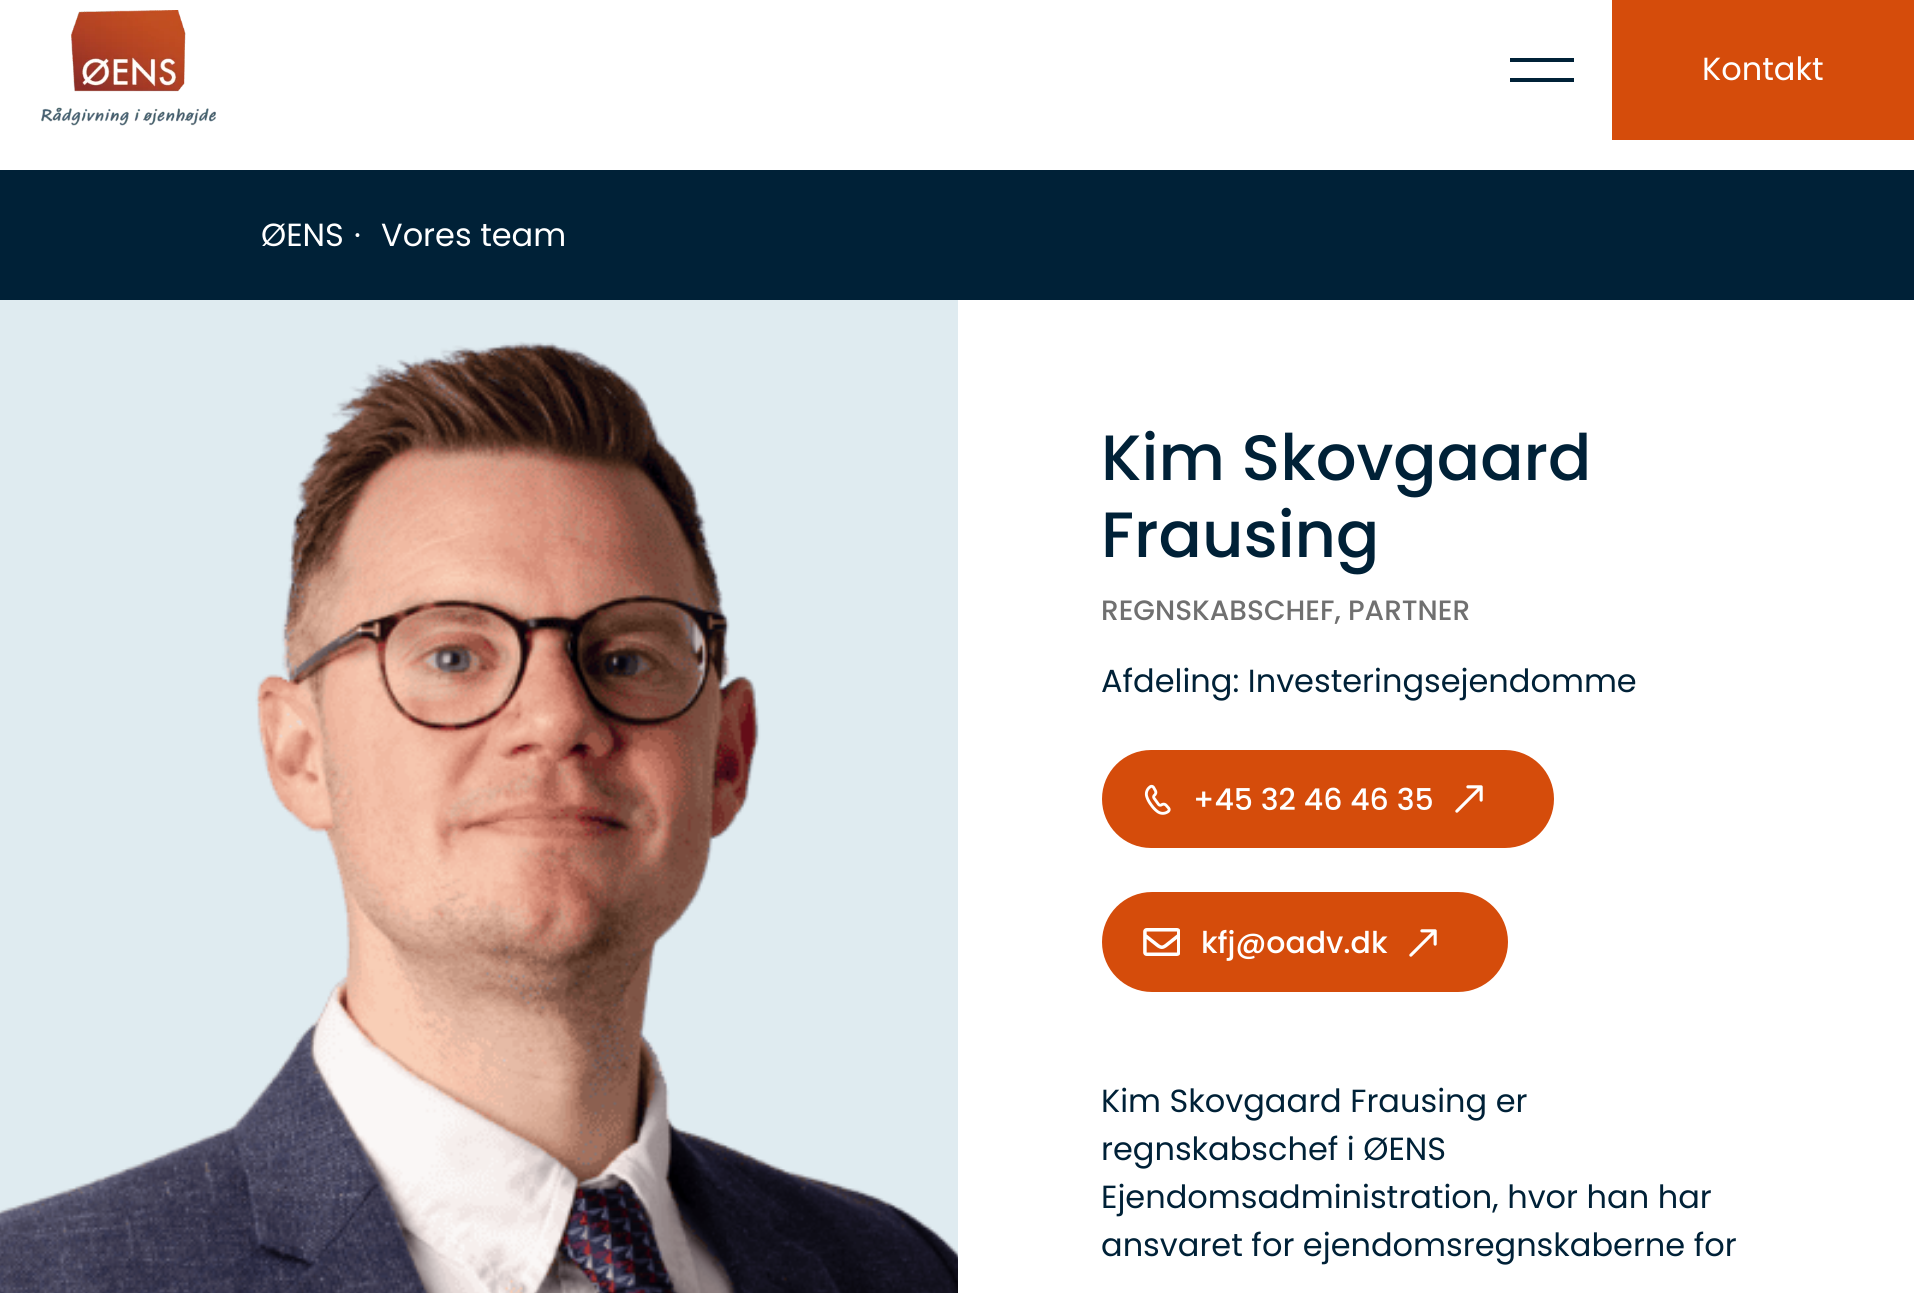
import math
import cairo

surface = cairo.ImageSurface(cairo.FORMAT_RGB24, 1914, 1293)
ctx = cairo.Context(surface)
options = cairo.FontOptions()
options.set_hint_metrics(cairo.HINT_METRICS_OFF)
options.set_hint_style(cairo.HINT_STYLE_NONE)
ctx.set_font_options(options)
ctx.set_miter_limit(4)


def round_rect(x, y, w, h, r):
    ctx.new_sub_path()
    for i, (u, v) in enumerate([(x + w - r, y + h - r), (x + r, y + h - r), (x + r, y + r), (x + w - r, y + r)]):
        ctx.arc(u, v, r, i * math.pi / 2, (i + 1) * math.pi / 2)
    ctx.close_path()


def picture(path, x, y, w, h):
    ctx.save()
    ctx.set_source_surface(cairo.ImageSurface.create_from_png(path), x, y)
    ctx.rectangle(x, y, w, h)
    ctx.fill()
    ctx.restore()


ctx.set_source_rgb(1, 1, 1)
ctx.paint()
picture("img1.png", 41, 10, 175, 116)
ctx.set_source_rgb(0, 0.129, 0.216)
ctx.rectangle(1510, 58, 64, 4)
ctx.fill()
ctx.rectangle(1510, 78, 64, 4)
ctx.fill()
ctx.set_source_rgb(0.835, 0.298, 0.043)
ctx.rectangle(1612, 0, 302, 140)
ctx.fill()
ctx.select_font_face("Poppins")
ctx.set_font_size(32)
ctx.set_source_rgb(1, 1, 1)
ctx.move_to(1702, 80)
ctx.show_text("Kontakt")
ctx.set_source_rgb(0, 0.129, 0.216)
ctx.rectangle(0, 170, 1914, 130)
ctx.fill()
ctx.set_source_rgb(1, 1, 1)
ctx.move_to(261, 246)
ctx.show_text("ØENS")
ctx.move_to(354, 246)
ctx.show_text("·")
ctx.move_to(381, 246)
ctx.show_text("Vores team")
ctx.set_source_rgb(0.875, 0.918, 0.941)
ctx.rectangle(0, 300, 958, 960)
ctx.fill()
picture("img2.png", 0, 341, 958, 952)
ctx.select_font_face("Poppins Medium")
ctx.set_font_size(64)
ctx.set_source_rgb(0, 0.129, 0.216)
ctx.move_to(1101, 480)
ctx.show_text("Kim Skovgaard")
ctx.move_to(1101, 557)
ctx.show_text("Frausing")
ctx.set_font_size(28)
ctx.set_source_rgb(0.439, 0.439, 0.439)
ctx.move_to(1101, 620)
ctx.show_text("REGNSKABSCHEF, PARTNER")
ctx.select_font_face("Poppins")
ctx.set_font_size(32)
ctx.set_source_rgb(0, 0.129, 0.216)
ctx.move_to(1101, 692)
ctx.show_text("Afdeling: Investeringsejendomme")
ctx.set_source_rgb(0.835, 0.298, 0.043)
round_rect(1104, 752, 448, 94, 47)
ctx.fill_preserve()
ctx.set_line_width(4)
ctx.stroke()
picture("img3.png", 1144, 784, 27, 31)
ctx.select_font_face("Poppins Medium")
ctx.set_font_size(30)
ctx.set_source_rgb(1, 1, 1)
ctx.move_to(1193, 810)
ctx.show_text("+45 32 46 46 35")
picture("img4.png", 1455, 785, 28, 28)
ctx.set_source_rgb(0.835, 0.298, 0.043)
round_rect(1104, 894, 402, 96, 48)
ctx.fill_preserve()
ctx.stroke()
picture("img5.png", 1143, 928, 37, 28)
ctx.set_source_rgb(1, 1, 1)
ctx.move_to(1201, 953)
ctx.show_text("kfj@oadv.dk")
picture("img4.png", 1409, 929, 28, 28)
ctx.select_font_face("Poppins")
ctx.set_font_size(32)
ctx.set_source_rgb(0, 0.129, 0.216)
ctx.move_to(1101, 1112)
ctx.show_text("Kim Skovgaard Frausing er")
ctx.move_to(1101, 1160)
ctx.show_text("regnskabschef i ØENS")
ctx.move_to(1101, 1208)
ctx.show_text("Ejendomsadministration, hvor han har")
ctx.move_to(1101, 1256)
ctx.show_text("ansvaret for ejendomsregnskaberne for")
surface.write_to_png("page.png")
